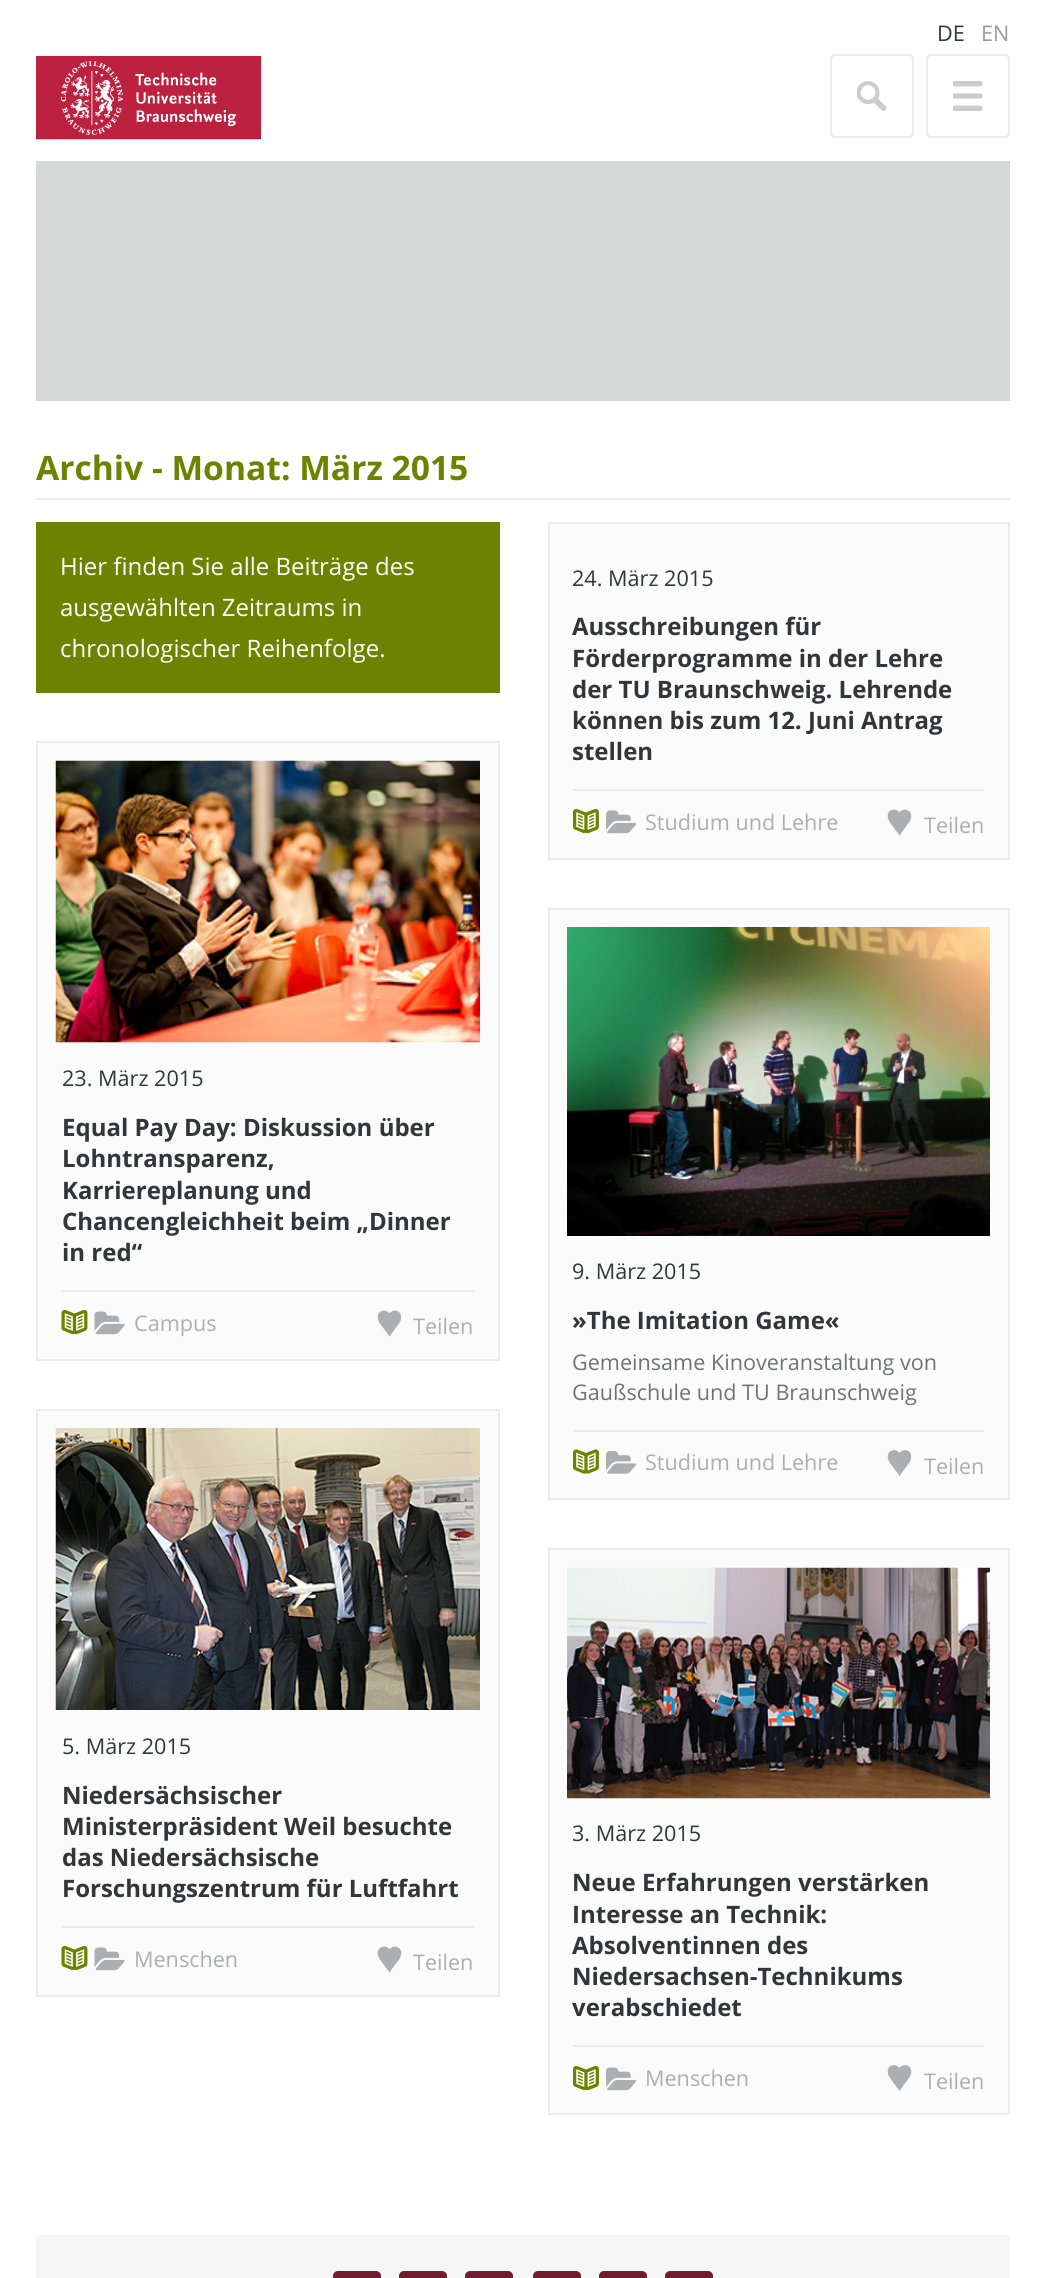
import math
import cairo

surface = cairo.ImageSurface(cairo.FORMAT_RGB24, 1045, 2278)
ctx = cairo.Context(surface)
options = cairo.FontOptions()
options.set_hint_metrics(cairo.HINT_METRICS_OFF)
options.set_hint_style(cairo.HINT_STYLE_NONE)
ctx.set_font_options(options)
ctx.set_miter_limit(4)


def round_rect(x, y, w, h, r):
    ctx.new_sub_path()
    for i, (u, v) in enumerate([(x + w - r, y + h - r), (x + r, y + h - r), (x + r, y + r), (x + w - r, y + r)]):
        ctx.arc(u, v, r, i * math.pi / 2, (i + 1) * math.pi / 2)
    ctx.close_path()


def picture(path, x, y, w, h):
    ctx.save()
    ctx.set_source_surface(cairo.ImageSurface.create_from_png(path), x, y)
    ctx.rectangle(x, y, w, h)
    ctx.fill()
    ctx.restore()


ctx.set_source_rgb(1, 1, 1)
ctx.paint()
ctx.select_font_face("Open Sans")
ctx.set_font_size(21.6)
ctx.set_source_rgb(0.196, 0.208, 0.224)
ctx.move_to(937, 41)
ctx.show_text("DE")
ctx.set_source_rgb(0.6, 0.604, 0.612)
ctx.move_to(981, 41)
ctx.show_text("EN")
picture("img1.png", 36, 56, 225, 84)
ctx.set_source_rgb(0.839, 0.843, 0.843)
ctx.rectangle(36, 161, 974, 240)
ctx.fill()
picture("img2.png", 857, 81, 30, 30)
round_rect(831, 55, 82, 82, 4)
ctx.set_source_rgb(0.922, 0.922, 0.922)
ctx.stroke()
picture("img3.png", 953, 81, 30, 30)
round_rect(927, 55, 82, 82, 4)
ctx.stroke()
ctx.rectangle(36, 498, 974, 2)
ctx.fill()
ctx.select_font_face("Open Sans", cairo.FONT_SLANT_NORMAL, cairo.FONT_WEIGHT_BOLD)
ctx.set_font_size(33.6)
ctx.set_source_rgb(0.427, 0.514, 0)
ctx.move_to(36, 480)
ctx.show_text("Archiv - Monat: März 2015")
ctx.rectangle(36, 522, 464, 171)
ctx.fill()
ctx.select_font_face("Open Sans")
ctx.set_font_size(24)
ctx.set_source_rgb(1, 1, 1)
ctx.move_to(60, 575)
ctx.show_text("Hier finden Sie alle Beiträge des")
ctx.move_to(60, 616)
ctx.show_text("ausgewählten Zeitraums in")
ctx.move_to(60, 657)
ctx.show_text("chronologischer Reihenfolge.")
ctx.set_source_rgb(0.984, 0.984, 0.984)
ctx.rectangle(37, 742, 462, 618)
ctx.fill_preserve()
ctx.set_source_rgb(0.922, 0.922, 0.922)
ctx.stroke()
picture("img4.png", 55, 760, 425, 283)
ctx.set_font_size(21.6)
ctx.set_source_rgb(0.196, 0.208, 0.224)
ctx.move_to(62, 1086)
ctx.show_text("23. März 2015")
ctx.select_font_face("Open Sans", cairo.FONT_SLANT_NORMAL, cairo.FONT_WEIGHT_BOLD)
ctx.set_font_size(24)
ctx.move_to(62, 1136)
ctx.show_text("Equal Pay Day: Diskussion über")
ctx.move_to(62, 1167)
ctx.show_text("Lohntransparenz,")
ctx.move_to(62, 1199)
ctx.show_text("Karriereplanung und")
ctx.move_to(62, 1230)
ctx.show_text("Chancengleichheit beim „Dinner")
ctx.move_to(62, 1261)
ctx.show_text("in red“")
ctx.set_source_rgb(0.922, 0.922, 0.922)
ctx.rectangle(62, 1290, 412, 2)
ctx.fill()
picture("img5.png", 61, 1309, 27, 26)
picture("img6.png", 94, 1311, 31, 24)
ctx.select_font_face("Open Sans")
ctx.set_font_size(21.6)
ctx.set_source_rgb(0.678, 0.682, 0.69)
ctx.move_to(134, 1331)
ctx.show_text("Campus")
picture("img7.png", 377, 1310, 25, 27)
ctx.move_to(413, 1334)
ctx.show_text("Teilen")
ctx.set_source_rgb(0.984, 0.984, 0.984)
ctx.rectangle(37, 1410, 462, 586)
ctx.fill_preserve()
ctx.set_source_rgb(0.922, 0.922, 0.922)
ctx.stroke()
picture("img8.png", 55, 1428, 425, 282)
ctx.set_source_rgb(0.196, 0.208, 0.224)
ctx.move_to(62, 1754)
ctx.show_text("5. März 2015")
ctx.select_font_face("Open Sans", cairo.FONT_SLANT_NORMAL, cairo.FONT_WEIGHT_BOLD)
ctx.set_font_size(24)
ctx.move_to(62, 1804)
ctx.show_text("Niedersächsischer")
ctx.move_to(62, 1835)
ctx.show_text("Ministerpräsident Weil besuchte")
ctx.move_to(62, 1866)
ctx.show_text("das Niedersächsische")
ctx.move_to(62, 1897)
ctx.show_text("Forschungszentrum für Luftfahrt")
ctx.set_source_rgb(0.922, 0.922, 0.922)
ctx.rectangle(62, 1926, 412, 2)
ctx.fill()
picture("img5.png", 61, 1945, 27, 26)
picture("img6.png", 94, 1947, 31, 24)
ctx.select_font_face("Open Sans")
ctx.set_font_size(21.6)
ctx.set_source_rgb(0.678, 0.682, 0.69)
ctx.move_to(134, 1967)
ctx.show_text("Menschen")
picture("img7.png", 377, 1946, 25, 27)
ctx.move_to(413, 1970)
ctx.show_text("Teilen")
ctx.set_source_rgb(0.984, 0.984, 0.984)
ctx.rectangle(549, 523, 460, 336)
ctx.fill_preserve()
ctx.set_source_rgb(0.922, 0.922, 0.922)
ctx.stroke()
ctx.set_source_rgb(0.196, 0.208, 0.224)
ctx.move_to(572, 586)
ctx.show_text("24. März 2015")
ctx.select_font_face("Open Sans", cairo.FONT_SLANT_NORMAL, cairo.FONT_WEIGHT_BOLD)
ctx.set_font_size(24)
ctx.move_to(572, 635)
ctx.show_text("Ausschreibungen für")
ctx.move_to(572, 667)
ctx.show_text("Förderprogramme in der Lehre")
ctx.move_to(572, 698)
ctx.show_text("der TU Braunschweig. Lehrende")
ctx.move_to(572, 729)
ctx.show_text("können bis zum 12. Juni Antrag")
ctx.move_to(572, 760)
ctx.show_text("stellen")
ctx.set_source_rgb(0.922, 0.922, 0.922)
ctx.rectangle(573, 789, 411, 2)
ctx.fill()
picture("img9.png", 573, 808, 26, 26)
picture("img10.png", 606, 810, 31, 24)
ctx.select_font_face("Open Sans")
ctx.set_font_size(21.6)
ctx.set_source_rgb(0.678, 0.682, 0.69)
ctx.move_to(645, 830)
ctx.show_text("Studium und Lehre")
picture("img7.png", 887, 809, 25, 27)
ctx.move_to(924, 833)
ctx.show_text("Teilen")
ctx.set_source_rgb(0.984, 0.984, 0.984)
ctx.rectangle(549, 909, 460, 590)
ctx.fill_preserve()
ctx.set_source_rgb(0.922, 0.922, 0.922)
ctx.stroke()
picture("img11.png", 567, 927, 423, 309)
ctx.set_source_rgb(0.196, 0.208, 0.224)
ctx.move_to(572, 1279)
ctx.show_text("9. März 2015")
ctx.select_font_face("Open Sans", cairo.FONT_SLANT_NORMAL, cairo.FONT_WEIGHT_BOLD)
ctx.set_font_size(24)
ctx.move_to(572, 1329)
ctx.show_text("»The Imitation Game«")
ctx.select_font_face("Open Sans")
ctx.set_font_size(21.6)
ctx.set_source_rgb(0.439, 0.447, 0.455)
ctx.move_to(572, 1370)
ctx.show_text("Gemeinsame Kinoveranstaltung von")
ctx.move_to(572, 1400)
ctx.show_text("Gaußschule und TU Braunschweig")
ctx.set_source_rgb(0.922, 0.922, 0.922)
ctx.rectangle(573, 1430, 411, 2)
ctx.fill()
picture("img12.png", 573, 1449, 26, 25)
picture("img13.png", 606, 1451, 31, 23)
ctx.set_source_rgb(0.678, 0.682, 0.69)
ctx.move_to(645, 1470)
ctx.show_text("Studium und Lehre")
picture("img14.png", 887, 1450, 25, 26)
ctx.move_to(924, 1474)
ctx.show_text("Teilen")
ctx.set_source_rgb(0.984, 0.984, 0.984)
ctx.rectangle(549, 1549, 460, 565)
ctx.fill_preserve()
ctx.set_source_rgb(0.922, 0.922, 0.922)
ctx.stroke()
picture("img15.png", 567, 1567, 423, 232)
ctx.set_source_rgb(0.196, 0.208, 0.224)
ctx.move_to(572, 1841)
ctx.show_text("3. März 2015")
ctx.select_font_face("Open Sans", cairo.FONT_SLANT_NORMAL, cairo.FONT_WEIGHT_BOLD)
ctx.set_font_size(24)
ctx.move_to(572, 1891)
ctx.show_text("Neue Erfahrungen verstärken")
ctx.move_to(572, 1923)
ctx.show_text("Interesse an Technik:")
ctx.move_to(572, 1954)
ctx.show_text("Absolventinnen des")
ctx.move_to(572, 1985)
ctx.show_text("Niedersachsen-Technikums")
ctx.move_to(572, 2016)
ctx.show_text("verabschiedet")
ctx.set_source_rgb(0.922, 0.922, 0.922)
ctx.rectangle(573, 2045, 411, 2)
ctx.fill()
picture("img9.png", 573, 2065, 26, 26)
picture("img10.png", 606, 2067, 31, 24)
ctx.select_font_face("Open Sans")
ctx.set_font_size(21.6)
ctx.set_source_rgb(0.678, 0.682, 0.69)
ctx.move_to(645, 2086)
ctx.show_text("Menschen")
picture("img14.png", 887, 2065, 25, 26)
ctx.move_to(924, 2089)
ctx.show_text("Teilen")
ctx.set_source_rgb(0.961, 0.961, 0.961)
ctx.rectangle(36, 2235, 974, 43)
ctx.fill()
ctx.set_source_rgb(0.443, 0.11, 0.184)
round_rect(333, 2271, 48, 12, 5)
ctx.fill()
round_rect(399, 2271, 48, 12, 5)
ctx.fill()
round_rect(465, 2271, 48, 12, 5)
ctx.fill()
round_rect(533, 2271, 48, 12, 5)
ctx.fill()
round_rect(599, 2271, 48, 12, 5)
ctx.fill()
round_rect(665, 2271, 48, 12, 5)
ctx.fill()
surface.write_to_png("page.png")
